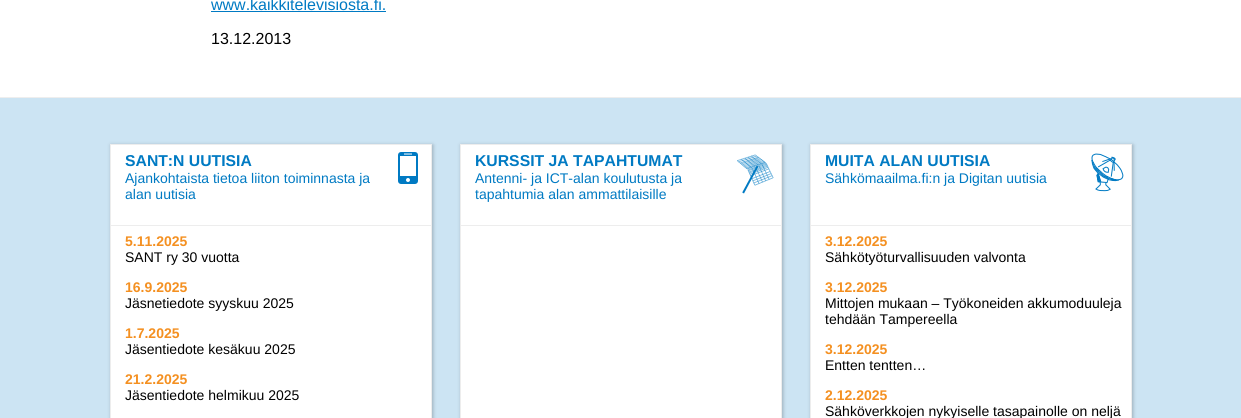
import math
import cairo

surface = cairo.ImageSurface(cairo.FORMAT_RGB24, 1241, 418)
ctx = cairo.Context(surface)
options = cairo.FontOptions()
options.set_hint_metrics(cairo.HINT_METRICS_OFF)
options.set_hint_style(cairo.HINT_STYLE_NONE)
ctx.set_font_options(options)
ctx.set_miter_limit(4)


def round_rect(x, y, w, h, r):
    ctx.new_sub_path()
    for i, (u, v) in enumerate([(x + w - r, y + h - r), (x + r, y + h - r), (x + r, y + r), (x + w - r, y + r)]):
        ctx.arc(u, v, r, i * math.pi / 2, (i + 1) * math.pi / 2)
    ctx.close_path()


def shadow(x, y, w, h, r, blur, alpha):
    ctx.push_group_with_content(cairo.CONTENT_ALPHA)
    ctx.set_operator(cairo.OPERATOR_SOURCE)
    for i in range(15, -16, -2):
        e = blur * i / 6
        if min(w, h) + 2 * e > 0:
            ctx.set_source_rgba(0, 0, 0, alpha * math.erfc((i - 1) / 8.5) / 2)
            round_rect(x - e, y - e, w + 2 * e, h + 2 * e, max(0, min(r + e + blur * .6, min(w, h) / 2 + e)))
            ctx.fill()
    ctx.mask(ctx.pop_group())


def picture(path, x, y, w, h):
    ctx.save()
    ctx.set_source_surface(cairo.ImageSurface.create_from_png(path), x, y)
    ctx.rectangle(x, y, w, h)
    ctx.fill()
    ctx.restore()


ctx.set_source_rgb(1, 1, 1)
ctx.paint()
ctx.select_font_face("Liberation Sans")
ctx.set_font_size(16)
ctx.set_source_rgb(0, 0.478, 0.765)
ctx.move_to(211, 10)
ctx.show_text("www.kaikkitelevisiosta.fi.")
ctx.rectangle(211, 11, 175, 1)
ctx.fill()
ctx.set_source_rgb(0, 0, 0)
ctx.move_to(211, 44)
ctx.show_text("13.12.2013")
ctx.set_source_rgb(0.8, 0.894, 0.953)
ctx.rectangle(0, 98, 1241, 320)
ctx.fill()
ctx.set_source_rgb(0.933, 0.933, 0.933)
ctx.rectangle(0, 97, 1241, 1)
ctx.fill()
ctx.set_source_rgb(0, 0, 0)
shadow(111, 145, 322, 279, 0, 2, 0.25)
ctx.set_source_rgb(1, 1, 1)
ctx.rectangle(110.5, 144.5, 321, 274)
ctx.fill_preserve()
ctx.set_source_rgb(0.929, 0.929, 0.929)
ctx.set_line_width(1)
ctx.stroke()
ctx.rectangle(111, 225, 320, 1)
ctx.fill()
picture("img1.png", 398, 152, 20, 32)
ctx.select_font_face("Liberation Sans", cairo.FONT_SLANT_NORMAL, cairo.FONT_WEIGHT_BOLD)
ctx.set_font_size(15.75)
ctx.set_source_rgb(0, 0.478, 0.765)
ctx.move_to(125, 166)
ctx.show_text("SANT:N UUTISIA")
ctx.select_font_face("Liberation Sans")
ctx.set_font_size(14)
ctx.move_to(125, 183)
ctx.show_text("Ajankohtaista tietoa liiton toiminnasta ja")
ctx.move_to(125, 199)
ctx.show_text("alan uutisia")
ctx.select_font_face("Liberation Sans", cairo.FONT_SLANT_NORMAL, cairo.FONT_WEIGHT_BOLD)
ctx.set_source_rgb(0.957, 0.565, 0.129)
ctx.move_to(125, 246)
ctx.show_text("5.11.2025")
ctx.select_font_face("Liberation Sans")
ctx.set_source_rgb(0, 0, 0)
ctx.move_to(125, 262)
ctx.show_text("SANT ry 30 vuotta")
ctx.select_font_face("Liberation Sans", cairo.FONT_SLANT_NORMAL, cairo.FONT_WEIGHT_BOLD)
ctx.set_source_rgb(0.957, 0.565, 0.129)
ctx.move_to(125, 292)
ctx.show_text("16.9.2025")
ctx.select_font_face("Liberation Sans")
ctx.set_source_rgb(0, 0, 0)
ctx.move_to(125, 308)
ctx.show_text("Jäsnetiedote syyskuu 2025")
ctx.select_font_face("Liberation Sans", cairo.FONT_SLANT_NORMAL, cairo.FONT_WEIGHT_BOLD)
ctx.set_source_rgb(0.957, 0.565, 0.129)
ctx.move_to(125, 338)
ctx.show_text("1.7.2025")
ctx.select_font_face("Liberation Sans")
ctx.set_source_rgb(0, 0, 0)
ctx.move_to(125, 354)
ctx.show_text("Jäsentiedote kesäkuu 2025")
ctx.select_font_face("Liberation Sans", cairo.FONT_SLANT_NORMAL, cairo.FONT_WEIGHT_BOLD)
ctx.set_source_rgb(0.957, 0.565, 0.129)
ctx.move_to(125, 384)
ctx.show_text("21.2.2025")
ctx.select_font_face("Liberation Sans")
ctx.set_source_rgb(0, 0, 0)
ctx.move_to(125, 400)
ctx.show_text("Jäsentiedote helmikuu 2025")
ctx.set_source_rgb(0, 0, 0)
shadow(461, 145, 322, 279, 0, 2, 0.25)
ctx.set_source_rgb(1, 1, 1)
ctx.rectangle(460.5, 144.5, 321, 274)
ctx.fill_preserve()
ctx.set_source_rgb(0.929, 0.929, 0.929)
ctx.stroke()
ctx.rectangle(461, 225, 320, 1)
ctx.fill()
picture("img2.png", 737, 154, 37, 40)
ctx.select_font_face("Liberation Sans", cairo.FONT_SLANT_NORMAL, cairo.FONT_WEIGHT_BOLD)
ctx.set_font_size(15.75)
ctx.set_source_rgb(0, 0.478, 0.765)
ctx.move_to(475, 166)
ctx.show_text("KURSSIT JA TAPAHTUMAT")
ctx.select_font_face("Liberation Sans")
ctx.set_font_size(14)
ctx.move_to(475, 183)
ctx.show_text("Antenni- ja ICT-alan koulutusta ja")
ctx.move_to(475, 199)
ctx.show_text("tapahtumia alan ammattilaisille")
ctx.set_source_rgb(0, 0, 0)
shadow(811, 145, 322, 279, 0, 2, 0.25)
ctx.set_source_rgb(1, 1, 1)
ctx.rectangle(810.5, 144.5, 321, 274)
ctx.fill_preserve()
ctx.set_source_rgb(0.929, 0.929, 0.929)
ctx.stroke()
ctx.rectangle(811, 225, 320, 1)
ctx.fill()
picture("img3.png", 1091, 153, 33, 39)
ctx.select_font_face("Liberation Sans", cairo.FONT_SLANT_NORMAL, cairo.FONT_WEIGHT_BOLD)
ctx.set_font_size(15.75)
ctx.set_source_rgb(0, 0.478, 0.765)
ctx.move_to(825, 166)
ctx.show_text("MUITA ALAN UUTISIA")
ctx.select_font_face("Liberation Sans")
ctx.set_font_size(14)
ctx.move_to(825, 183)
ctx.show_text("Sähkömaailma.fi:n ja Digitan uutisia")
ctx.select_font_face("Liberation Sans", cairo.FONT_SLANT_NORMAL, cairo.FONT_WEIGHT_BOLD)
ctx.set_source_rgb(0.957, 0.565, 0.129)
ctx.move_to(825, 246)
ctx.show_text("3.12.2025")
ctx.select_font_face("Liberation Sans")
ctx.set_source_rgb(0, 0, 0)
ctx.move_to(825, 262)
ctx.show_text("Sähkötyöturvallisuuden valvonta")
ctx.select_font_face("Liberation Sans", cairo.FONT_SLANT_NORMAL, cairo.FONT_WEIGHT_BOLD)
ctx.set_source_rgb(0.957, 0.565, 0.129)
ctx.move_to(825, 292)
ctx.show_text("3.12.2025")
ctx.select_font_face("Liberation Sans")
ctx.set_source_rgb(0, 0, 0)
ctx.move_to(825, 308)
ctx.show_text("Mittojen mukaan – Työkoneiden akkumoduuleja")
ctx.move_to(825, 324)
ctx.show_text("tehdään Tampereella")
ctx.select_font_face("Liberation Sans", cairo.FONT_SLANT_NORMAL, cairo.FONT_WEIGHT_BOLD)
ctx.set_source_rgb(0.957, 0.565, 0.129)
ctx.move_to(825, 354)
ctx.show_text("3.12.2025")
ctx.select_font_face("Liberation Sans")
ctx.set_source_rgb(0, 0, 0)
ctx.move_to(825, 370)
ctx.show_text("Entten tentten…")
ctx.select_font_face("Liberation Sans", cairo.FONT_SLANT_NORMAL, cairo.FONT_WEIGHT_BOLD)
ctx.set_source_rgb(0.957, 0.565, 0.129)
ctx.move_to(825, 400)
ctx.show_text("2.12.2025")
ctx.select_font_face("Liberation Sans")
ctx.set_source_rgb(0, 0, 0)
ctx.move_to(825, 416)
ctx.show_text("Sähköverkkojen nykyiselle tasapainolle on neljä")
surface.write_to_png("page.png")
